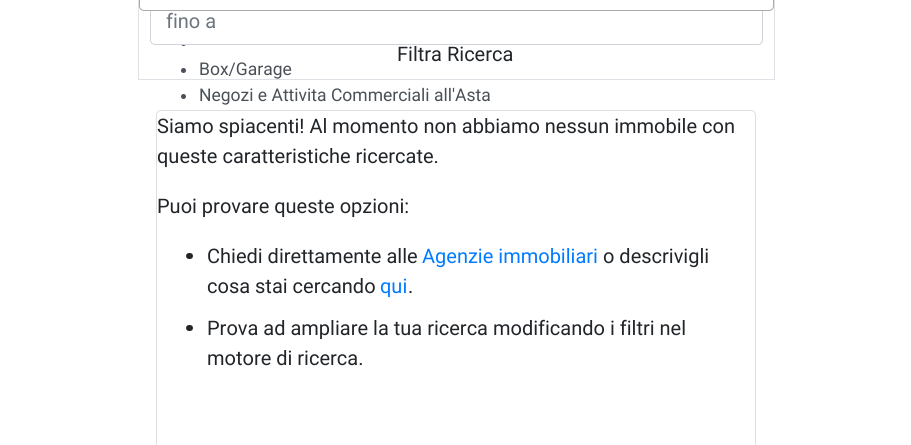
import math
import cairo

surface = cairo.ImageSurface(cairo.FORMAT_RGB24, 911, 445)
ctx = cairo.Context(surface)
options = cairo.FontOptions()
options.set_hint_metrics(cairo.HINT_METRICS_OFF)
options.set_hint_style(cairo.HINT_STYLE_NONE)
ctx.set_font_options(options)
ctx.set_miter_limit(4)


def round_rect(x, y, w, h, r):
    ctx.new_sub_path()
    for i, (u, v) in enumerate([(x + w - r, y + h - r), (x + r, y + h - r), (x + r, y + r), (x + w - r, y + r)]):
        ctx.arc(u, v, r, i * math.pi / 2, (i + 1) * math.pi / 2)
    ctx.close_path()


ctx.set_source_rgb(1, 1, 1)
ctx.paint()
ctx.rectangle(138.5, -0.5, 636, 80)
ctx.set_source_rgb(0.871, 0.886, 0.902)
ctx.set_line_width(1)
ctx.stroke()
ctx.set_source_rgb(0.286, 0.314, 0.341)
ctx.arc(183.5, 43.5, 2.5, 0, 2 * math.pi)
ctx.fill()
ctx.set_source_rgb(1, 1, 1)
round_rect(151, -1, 610, 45, 4)
ctx.fill()
round_rect(150.5, -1.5, 612, 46, 4.5)
ctx.set_source_rgb(0.808, 0.831, 0.855)
ctx.stroke()
ctx.set_source_rgb(1, 1, 1)
round_rect(139.5, -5.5, 634, 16, 4.5)
ctx.fill_preserve()
ctx.set_source_rgb(0.667, 0.667, 0.667)
ctx.stroke()
ctx.select_font_face("Roboto")
ctx.set_font_size(20)
ctx.set_source_rgb(0.424, 0.459, 0.49)
ctx.move_to(166, 28)
ctx.show_text("fino a")
ctx.set_source_rgb(0.129, 0.145, 0.161)
ctx.move_to(397, 61)
ctx.show_text("Filtra Ricerca")
ctx.set_source_rgb(0.286, 0.314, 0.341)
ctx.new_path()
ctx.arc(183.5, 70.5, 2.5, 0, 2 * math.pi)
ctx.fill()
ctx.set_font_size(17.5)
ctx.move_to(199, 75)
ctx.show_text("Box/Garage")
ctx.new_path()
ctx.arc(183.5, 96.5, 2.5, 0, 2 * math.pi)
ctx.fill()
ctx.move_to(199, 101)
ctx.show_text("Negozi e Attivita Commerciali all'Asta")
round_rect(156.5, 110.5, 599, 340, 4.5)
ctx.set_source_rgb(0.875, 0.875, 0.875)
ctx.stroke()
ctx.set_font_size(20)
ctx.set_source_rgb(0.129, 0.145, 0.161)
ctx.move_to(157, 133)
ctx.show_text("Siamo spiacenti! Al momento non abbiamo nessun immobile con")
ctx.move_to(157, 163)
ctx.show_text("queste caratteristiche ricercate.")
ctx.move_to(157, 213)
ctx.show_text("Puoi provare queste opzioni:")
round_rect(186, 253, 7, 6, 3)
ctx.fill()
ctx.move_to(207, 263)
ctx.show_text("Chiedi direttamente alle")
ctx.set_source_rgb(0, 0.482, 1)
ctx.move_to(422, 263)
ctx.show_text("Agenzie immobiliari")
ctx.set_source_rgb(0.129, 0.145, 0.161)
ctx.move_to(603, 263)
ctx.show_text("o descrivigli")
ctx.move_to(207, 293)
ctx.show_text("cosa stai cercando")
ctx.set_source_rgb(0, 0.482, 1)
ctx.move_to(380, 293)
ctx.show_text("qui")
ctx.set_source_rgb(0.129, 0.145, 0.161)
ctx.move_to(408, 293)
ctx.show_text(".")
round_rect(186, 325, 7, 6, 3)
ctx.fill()
ctx.move_to(207, 335)
ctx.show_text("Prova ad ampliare la tua ricerca modificando i filtri nel")
ctx.move_to(207, 365)
ctx.show_text("motore di ricerca.")
surface.write_to_png("page.png")
